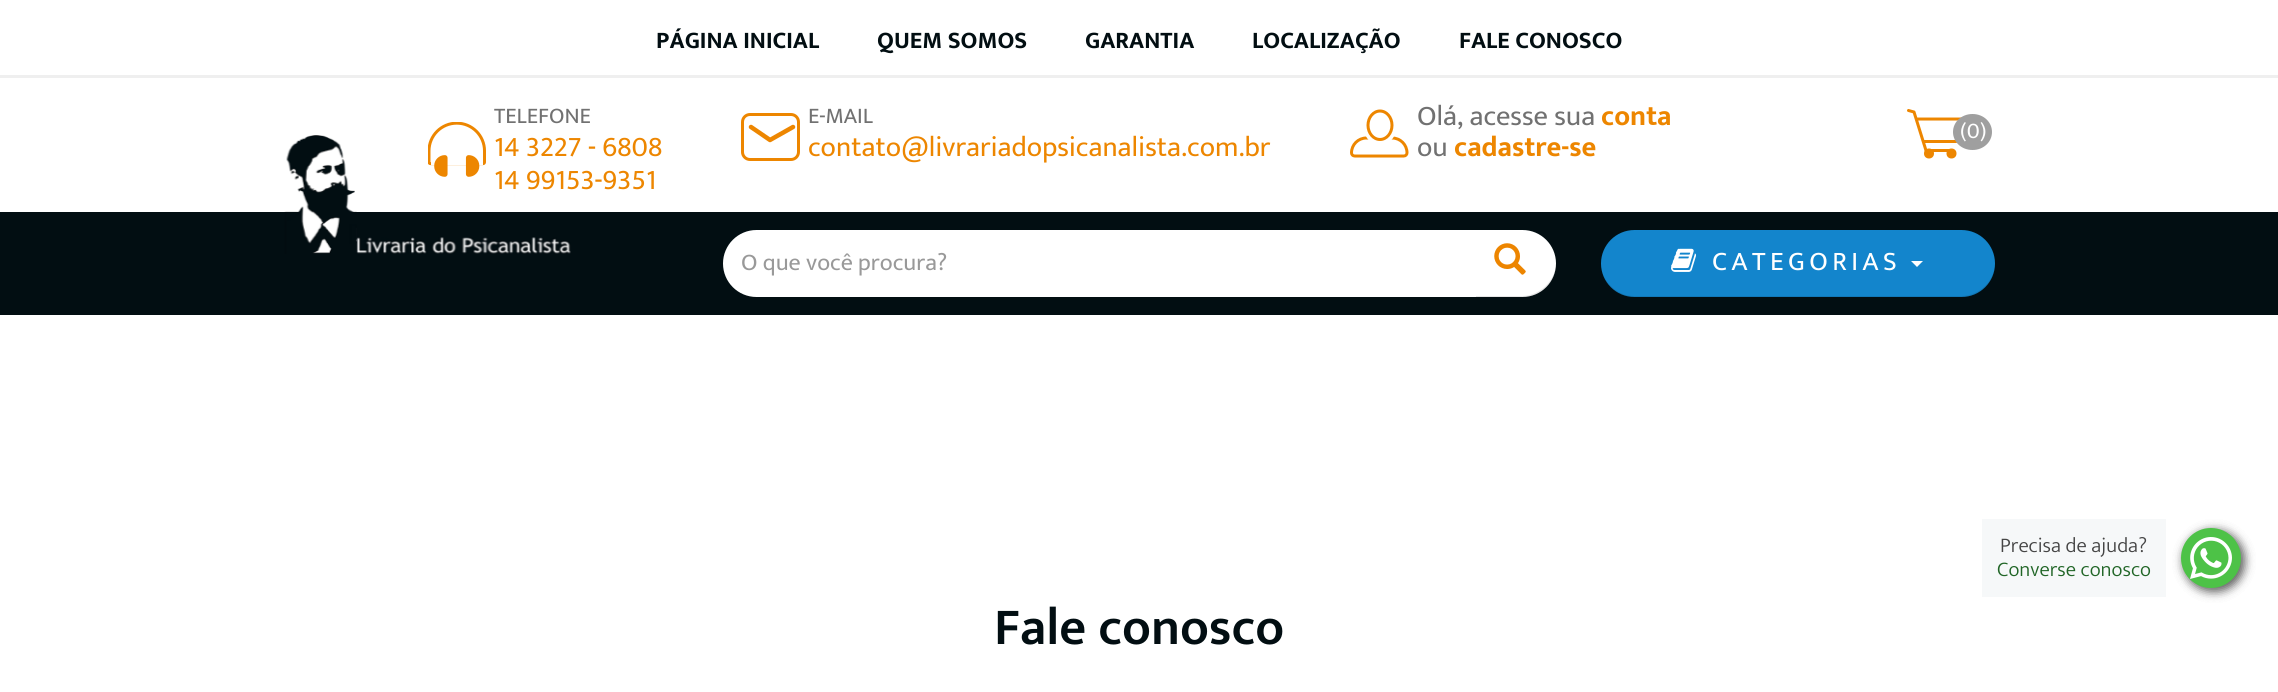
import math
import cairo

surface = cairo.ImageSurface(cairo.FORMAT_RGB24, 2278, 692)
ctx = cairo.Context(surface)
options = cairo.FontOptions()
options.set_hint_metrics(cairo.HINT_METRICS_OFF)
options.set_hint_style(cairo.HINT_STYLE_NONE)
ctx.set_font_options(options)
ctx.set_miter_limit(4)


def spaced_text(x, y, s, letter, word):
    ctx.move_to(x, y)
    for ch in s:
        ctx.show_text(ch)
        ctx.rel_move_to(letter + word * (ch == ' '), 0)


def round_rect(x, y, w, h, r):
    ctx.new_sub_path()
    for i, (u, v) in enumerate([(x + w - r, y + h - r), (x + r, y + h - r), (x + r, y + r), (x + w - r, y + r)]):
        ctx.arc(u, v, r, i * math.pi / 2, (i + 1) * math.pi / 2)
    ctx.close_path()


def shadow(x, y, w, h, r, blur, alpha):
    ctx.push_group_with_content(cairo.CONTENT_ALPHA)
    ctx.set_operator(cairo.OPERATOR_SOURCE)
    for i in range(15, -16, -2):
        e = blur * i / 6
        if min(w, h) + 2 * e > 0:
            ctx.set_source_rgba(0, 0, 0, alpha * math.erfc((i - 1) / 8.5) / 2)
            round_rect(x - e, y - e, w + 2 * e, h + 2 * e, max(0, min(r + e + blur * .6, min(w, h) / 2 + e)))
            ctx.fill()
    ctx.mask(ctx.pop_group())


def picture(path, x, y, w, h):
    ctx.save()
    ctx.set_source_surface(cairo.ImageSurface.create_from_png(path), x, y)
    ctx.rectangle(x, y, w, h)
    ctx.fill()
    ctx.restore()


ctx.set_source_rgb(1, 1, 1)
ctx.paint()
ctx.set_source_rgb(0.937, 0.937, 0.937)
ctx.rectangle(0, 75, 2278, 3)
ctx.fill()
ctx.select_font_face("Mukta", cairo.FONT_SLANT_NORMAL, cairo.FONT_WEIGHT_BOLD)
ctx.set_font_size(24)
ctx.set_source_rgb(0.008, 0.055, 0.071)
ctx.move_to(656, 48)
ctx.show_text("PÁGINA INICIAL")
ctx.move_to(877, 48)
ctx.show_text("QUEM SOMOS")
ctx.move_to(1085, 48)
ctx.show_text("GARANTIA")
ctx.move_to(1252, 48)
ctx.show_text("LOCALIZAÇÃO")
ctx.move_to(1459, 48)
ctx.show_text("FALE CONOSCO")
picture("img1.png", 428, 122, 58, 55)
ctx.select_font_face("Mukta")
ctx.set_font_size(22.5)
ctx.set_source_rgb(0.443, 0.443, 0.443)
ctx.move_to(494, 123)
ctx.show_text("TELEFONE")
ctx.set_font_size(28.5)
ctx.set_source_rgb(0.929, 0.525, 0)
ctx.move_to(494, 156)
ctx.show_text("14 3227 - 6808")
ctx.move_to(494, 189)
ctx.show_text("14 99153-9351")
round_rect(742.5, 114.5, 56, 45, 7.5)
ctx.set_line_width(3)
ctx.stroke()
ctx.new_path()
ctx.move_to(793, 127)
ctx.line_to(770, 140)
ctx.move_to(751, 127)
ctx.line_to(770, 140)
ctx.set_line_width(4.5)
ctx.set_line_cap(cairo.LINE_CAP_ROUND)
ctx.stroke()
ctx.set_font_size(22.5)
ctx.set_source_rgb(0.443, 0.443, 0.443)
ctx.move_to(808, 123)
ctx.show_text("E-MAIL")
ctx.set_font_size(28.5)
ctx.set_source_rgb(0.929, 0.525, 0)
ctx.move_to(808, 156)
ctx.show_text("contato@livrariadopsicanalista.com.br")
picture("img2.png", 1350, 109, 59, 49)
ctx.set_source_rgb(0.443, 0.443, 0.443)
ctx.move_to(1417, 125)
ctx.show_text("Olá, acesse sua")
ctx.select_font_face("Mukta", cairo.FONT_SLANT_NORMAL, cairo.FONT_WEIGHT_BOLD)
ctx.set_source_rgb(0.929, 0.525, 0)
ctx.move_to(1601, 125)
ctx.show_text("conta")
ctx.select_font_face("Mukta")
ctx.set_source_rgb(0.443, 0.443, 0.443)
ctx.move_to(1417, 156)
ctx.show_text("ou")
ctx.select_font_face("Mukta", cairo.FONT_SLANT_NORMAL, cairo.FONT_WEIGHT_BOLD)
ctx.set_source_rgb(0.929, 0.525, 0)
ctx.move_to(1454, 156)
ctx.show_text("cadastre-se")
ctx.new_path()
ctx.move_to(1917, 119)
ctx.line_to(1961.5, 119)
ctx.move_to(1956, 141.5)
ctx.line_to(1961.5, 119)
ctx.move_to(1956, 141.5)
ctx.line_to(1924.5, 141.5)
ctx.move_to(1926, 150.5)
ctx.line_to(1914, 112)
ctx.move_to(1926, 150.5)
ctx.line_to(1948.5, 150.5)
ctx.move_to(1908.5, 110.5)
ctx.line_to(1914, 112)
ctx.set_line_width(3)
ctx.stroke()
ctx.arc(1929, 153.5, 5, 0, 2 * math.pi)
ctx.fill()
ctx.arc(1951.5, 153.5, 5, 0, 2 * math.pi)
ctx.fill()
ctx.set_source_rgb(0.624, 0.624, 0.624)
ctx.new_path()
ctx.move_to(1972.5, 114)
ctx.curve_to(1983.5, 114, 1992, 122, 1992, 132)
ctx.curve_to(1992, 142, 1983.5, 150, 1972.5, 150)
ctx.curve_to(1961.5, 150, 1953, 142, 1953, 132)
ctx.curve_to(1953, 122, 1961.5, 114, 1972.5, 114)
ctx.close_path()
ctx.fill()
ctx.select_font_face("Mukta")
ctx.set_font_size(22.5)
ctx.set_source_rgb(1, 1, 1)
ctx.move_to(1960, 138)
ctx.show_text("(0)")
ctx.set_source_rgb(0.008, 0.055, 0.071)
ctx.rectangle(0, 212, 2278, 103)
ctx.fill()
picture("img3.png", 284, 135, 287, 119)
ctx.set_source_rgb(1, 1, 1)
ctx.new_path()
ctx.move_to(756.5, 230)
ctx.line_to(1478, 230)
ctx.line_to(1478, 297)
ctx.line_to(756.5, 297)
ctx.curve_to(738, 297, 723, 282, 723, 263.5)
ctx.curve_to(723, 245, 738, 230, 756.5, 230)
ctx.close_path()
ctx.fill()
ctx.set_font_size(24)
ctx.set_source_rgb(0.6, 0.6, 0.6)
ctx.move_to(741, 270)
ctx.show_text("O que você procura?")
ctx.set_source_rgb(1, 1, 1)
ctx.new_path()
ctx.move_to(1476, 230)
ctx.line_to(1522.5, 230)
ctx.curve_to(1541, 230, 1556, 245, 1556, 263.5)
ctx.curve_to(1556, 282, 1541, 297, 1522.5, 297)
ctx.line_to(1476, 297)
ctx.close_path()
ctx.fill()
ctx.set_source_rgba(0, 0, 0, 0.1)
ctx.new_path()
ctx.move_to(1476, 296)
ctx.line_to(1476, 297)
ctx.line_to(1522, 297)
ctx.curve_to(1541, 297, 1556, 282, 1556, 264)
ctx.line_to(1556, 263)
ctx.curve_to(1556, 280, 1540, 296, 1522, 296)
ctx.close_path()
ctx.fill()
picture("img4.png", 1494, 243, 32, 32)
ctx.set_source_rgb(0.078, 0.522, 0.8)
round_rect(1601, 230, 394, 67, 33.5)
ctx.fill()
ctx.set_source_rgba(0, 0, 0, 0.1)
ctx.new_path()
ctx.move_to(1604, 277)
ctx.curve_to(1609, 289, 1621, 297, 1634, 297)
ctx.line_to(1962, 297)
ctx.curve_to(1980, 297, 1995, 282, 1995, 264)
ctx.line_to(1995, 263)
ctx.curve_to(1995, 280, 1980, 296, 1961, 296)
ctx.line_to(1634, 296)
ctx.curve_to(1621, 296, 1610, 288, 1604, 277)
ctx.close_path()
ctx.fill()
picture("img5.png", 1671, 248, 25, 24)
ctx.set_font_size(27)
ctx.set_source_rgb(1, 1, 1)
spaced_text(1712, 270, "CATEGORIAS", 4.5, 0)
ctx.new_path()
ctx.move_to(1911, 261)
ctx.line_to(1923, 261)
ctx.line_to(1917, 267)
ctx.close_path()
ctx.fill()
ctx.set_source_rgb(0, 0, 0)
shadow(2184, 531, 60, 60, 30, 5, 0.4)
ctx.set_source_rgb(0.961, 0.969, 0.976)
ctx.rectangle(1982, 519, 184, 78)
ctx.fill()
ctx.select_font_face("Mukta Light")
ctx.set_font_size(21)
ctx.set_source_rgb(0.271, 0.271, 0.271)
ctx.move_to(2000, 552)
ctx.show_text("Precisa de ajuda?")
ctx.set_source_rgb(0.125, 0.396, 0.149)
ctx.move_to(1997, 576)
ctx.show_text("Converse conosco")
ctx.set_source_rgb(0, 0, 0)
shadow(2184, 531, 60, 60, 30, 5, 0.4)
ctx.set_source_rgb(0.302, 0.761, 0.278)
ctx.arc(2211, 558, 30, 0, 2 * math.pi)
ctx.fill()
picture("img6.png", 2190, 537, 42, 42)
ctx.select_font_face("Mukta SemiBold")
ctx.set_font_size(52.5)
ctx.set_source_rgb(0.008, 0.055, 0.071)
ctx.move_to(994, 644)
ctx.show_text("Fale conosco")
surface.write_to_png("page.png")
